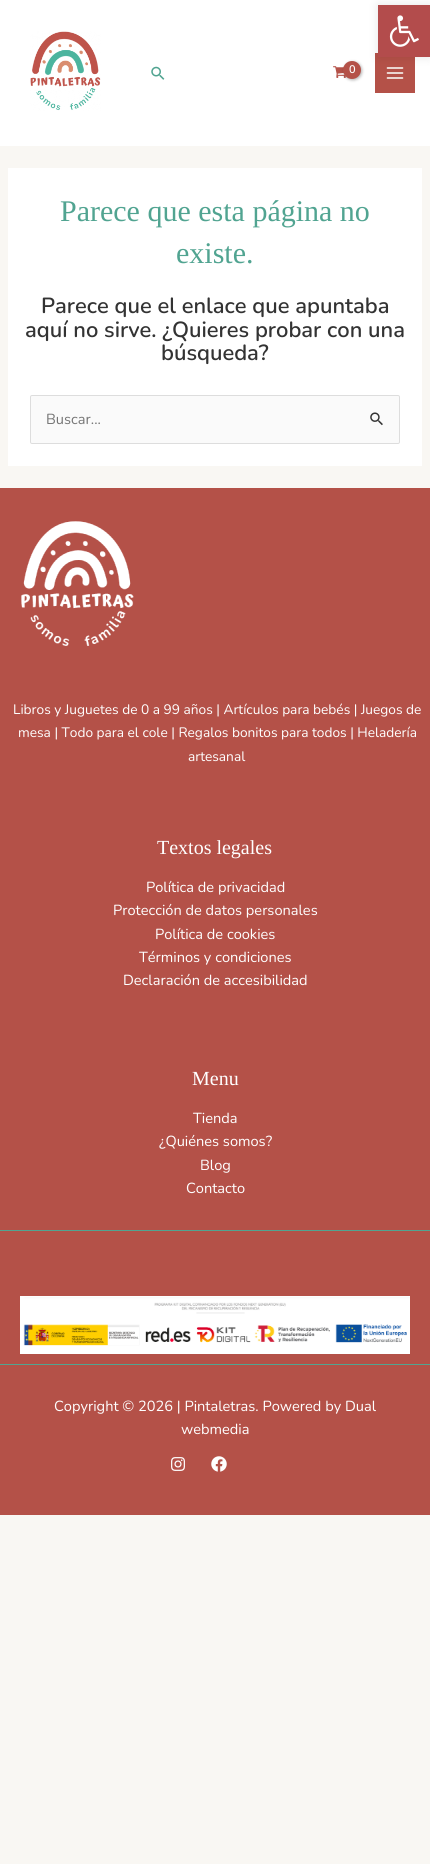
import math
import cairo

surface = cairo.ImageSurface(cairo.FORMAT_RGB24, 430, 1864)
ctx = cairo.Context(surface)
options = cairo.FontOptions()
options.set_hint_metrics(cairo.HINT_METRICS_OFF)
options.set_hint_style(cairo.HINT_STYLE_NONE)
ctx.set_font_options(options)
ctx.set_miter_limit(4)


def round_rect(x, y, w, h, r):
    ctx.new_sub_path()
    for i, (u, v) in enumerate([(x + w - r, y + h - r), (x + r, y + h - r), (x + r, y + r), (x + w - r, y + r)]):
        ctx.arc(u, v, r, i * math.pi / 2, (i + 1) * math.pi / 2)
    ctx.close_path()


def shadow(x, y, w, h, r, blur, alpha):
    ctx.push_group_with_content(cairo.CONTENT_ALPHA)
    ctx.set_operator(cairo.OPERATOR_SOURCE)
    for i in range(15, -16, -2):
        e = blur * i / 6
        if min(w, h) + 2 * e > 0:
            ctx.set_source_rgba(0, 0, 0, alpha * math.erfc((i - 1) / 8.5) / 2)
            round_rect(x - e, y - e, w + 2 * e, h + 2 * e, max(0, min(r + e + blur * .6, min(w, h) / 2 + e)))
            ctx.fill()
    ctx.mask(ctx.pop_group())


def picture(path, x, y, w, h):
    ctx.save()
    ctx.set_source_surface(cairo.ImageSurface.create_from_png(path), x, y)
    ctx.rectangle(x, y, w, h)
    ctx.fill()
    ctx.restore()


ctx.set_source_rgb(0.973, 0.965, 0.953)
ctx.paint()
ctx.set_source_rgb(1, 1, 1)
ctx.rectangle(0, 0, 430, 146)
ctx.fill()
ctx.set_source_rgb(0.706, 0.318, 0.282)
ctx.rectangle(375, 53, 40, 40)
ctx.fill()
picture("img5.png", 386, 67, 18, 12)
ctx.set_source_rgb(0, 0, 0)
shadow(378, 5, 52, 52, 0, 5, 0.1)
ctx.set_source_rgb(0.702, 0.298, 0.298)
ctx.rectangle(378, 5, 52, 52)
ctx.fill()
picture("img1.png", 389, 15, 30, 32)
picture("img2.png", 30, 31, 71, 80)
picture("img3.png", 151, 66, 14, 14)
picture("img4.png", 333, 66, 13, 12)
ctx.set_source_rgb(0, 0, 0)
shadow(344, 62, 18, 18, 9, 1.5, 0.3)
ctx.set_source_rgb(0.706, 0.318, 0.282)
ctx.arc(352, 70, 9, 0, 2 * math.pi)
ctx.fill()
ctx.select_font_face("Nunito SemiBold")
ctx.set_font_size(11)
ctx.set_source_rgb(1, 1, 1)
ctx.move_to(349, 73)
ctx.show_text("0")
ctx.rectangle(8, 168, 414, 298)
ctx.fill()
ctx.select_font_face("Liberation Serif")
ctx.set_font_size(30)
ctx.set_source_rgb(0.318, 0.643, 0.569)
ctx.move_to(60, 221)
ctx.show_text("Parece que esta página no")
ctx.move_to(176, 263)
ctx.show_text("existe.")
ctx.select_font_face("Nunito SemiBold")
ctx.set_font_size(21.9)
ctx.set_source_rgb(0.2, 0.2, 0.2)
ctx.move_to(41, 313)
ctx.show_text("Parece que el enlace que apuntaba")
ctx.move_to(25, 337)
ctx.show_text("aquí no sirve. ¿Quieres probar con una")
ctx.move_to(161, 360)
ctx.show_text("búsqueda?")
ctx.set_source_rgb(0.98, 0.98, 0.98)
round_rect(30.5, 395.5, 369, 48, 1.5)
ctx.fill_preserve()
ctx.set_source_rgb(0.867, 0.867, 0.867)
ctx.set_line_width(1)
ctx.stroke()
ctx.select_font_face("Nunito")
ctx.set_font_size(14.6)
ctx.set_source_rgb(0.459, 0.459, 0.459)
ctx.move_to(46, 424)
ctx.show_text("Buscar...")
picture("img6.png", 370, 412, 13, 14)
ctx.set_source_rgb(0.706, 0.318, 0.282)
ctx.rectangle(0, 488, 430, 1027)
ctx.fill()
picture("img7.png", 21, 521, 113, 125)
ctx.set_font_size(13.7)
ctx.set_source_rgb(1, 1, 1)
ctx.move_to(13, 714)
ctx.show_text("Libros y Juguetes de 0 a 99 años | Artículos para bebés | Juegos de")
ctx.move_to(18, 737)
ctx.show_text("mesa | Todo para el cole | Regalos bonitos para todos | Heladería")
ctx.move_to(188, 761)
ctx.show_text("artesanal")
ctx.select_font_face("Liberation Serif")
ctx.set_font_size(20)
ctx.move_to(157, 854)
ctx.show_text("Textos legales")
ctx.select_font_face("Nunito")
ctx.set_font_size(14.6)
ctx.move_to(146, 892)
ctx.show_text("Política de privacidad")
ctx.move_to(113, 915)
ctx.show_text("Protección de datos personales")
ctx.move_to(155, 939)
ctx.show_text("Política de cookies")
ctx.move_to(139, 962)
ctx.show_text("Términos y condiciones")
ctx.move_to(123, 985)
ctx.show_text("Declaración de accesibilidad")
ctx.select_font_face("Liberation Serif")
ctx.set_font_size(20)
ctx.move_to(192, 1085)
ctx.show_text("Menu")
ctx.select_font_face("Nunito")
ctx.set_font_size(14.6)
ctx.move_to(193, 1123)
ctx.show_text("Tienda")
ctx.move_to(159, 1146)
ctx.show_text("¿Quiénes somos?")
ctx.move_to(200, 1170)
ctx.show_text("Blog")
ctx.move_to(186, 1193)
ctx.show_text("Contacto")
ctx.set_source_rgb(0.318, 0.643, 0.569)
ctx.rectangle(0, 1230, 430, 1)
ctx.fill()
picture("img8.png", 20, 1296, 390, 58)
ctx.rectangle(0, 1364, 430, 1)
ctx.fill()
ctx.set_source_rgb(1, 1, 1)
ctx.move_to(54, 1411)
ctx.show_text("Copyright © 2026 | Pintaletras. Powered by Dual")
ctx.move_to(181, 1434)
ctx.show_text("webmedia")
picture("img9.png", 171, 1457, 14, 14)
picture("img10.png", 211, 1456, 16, 16)
surface.write_to_png("page.png")
